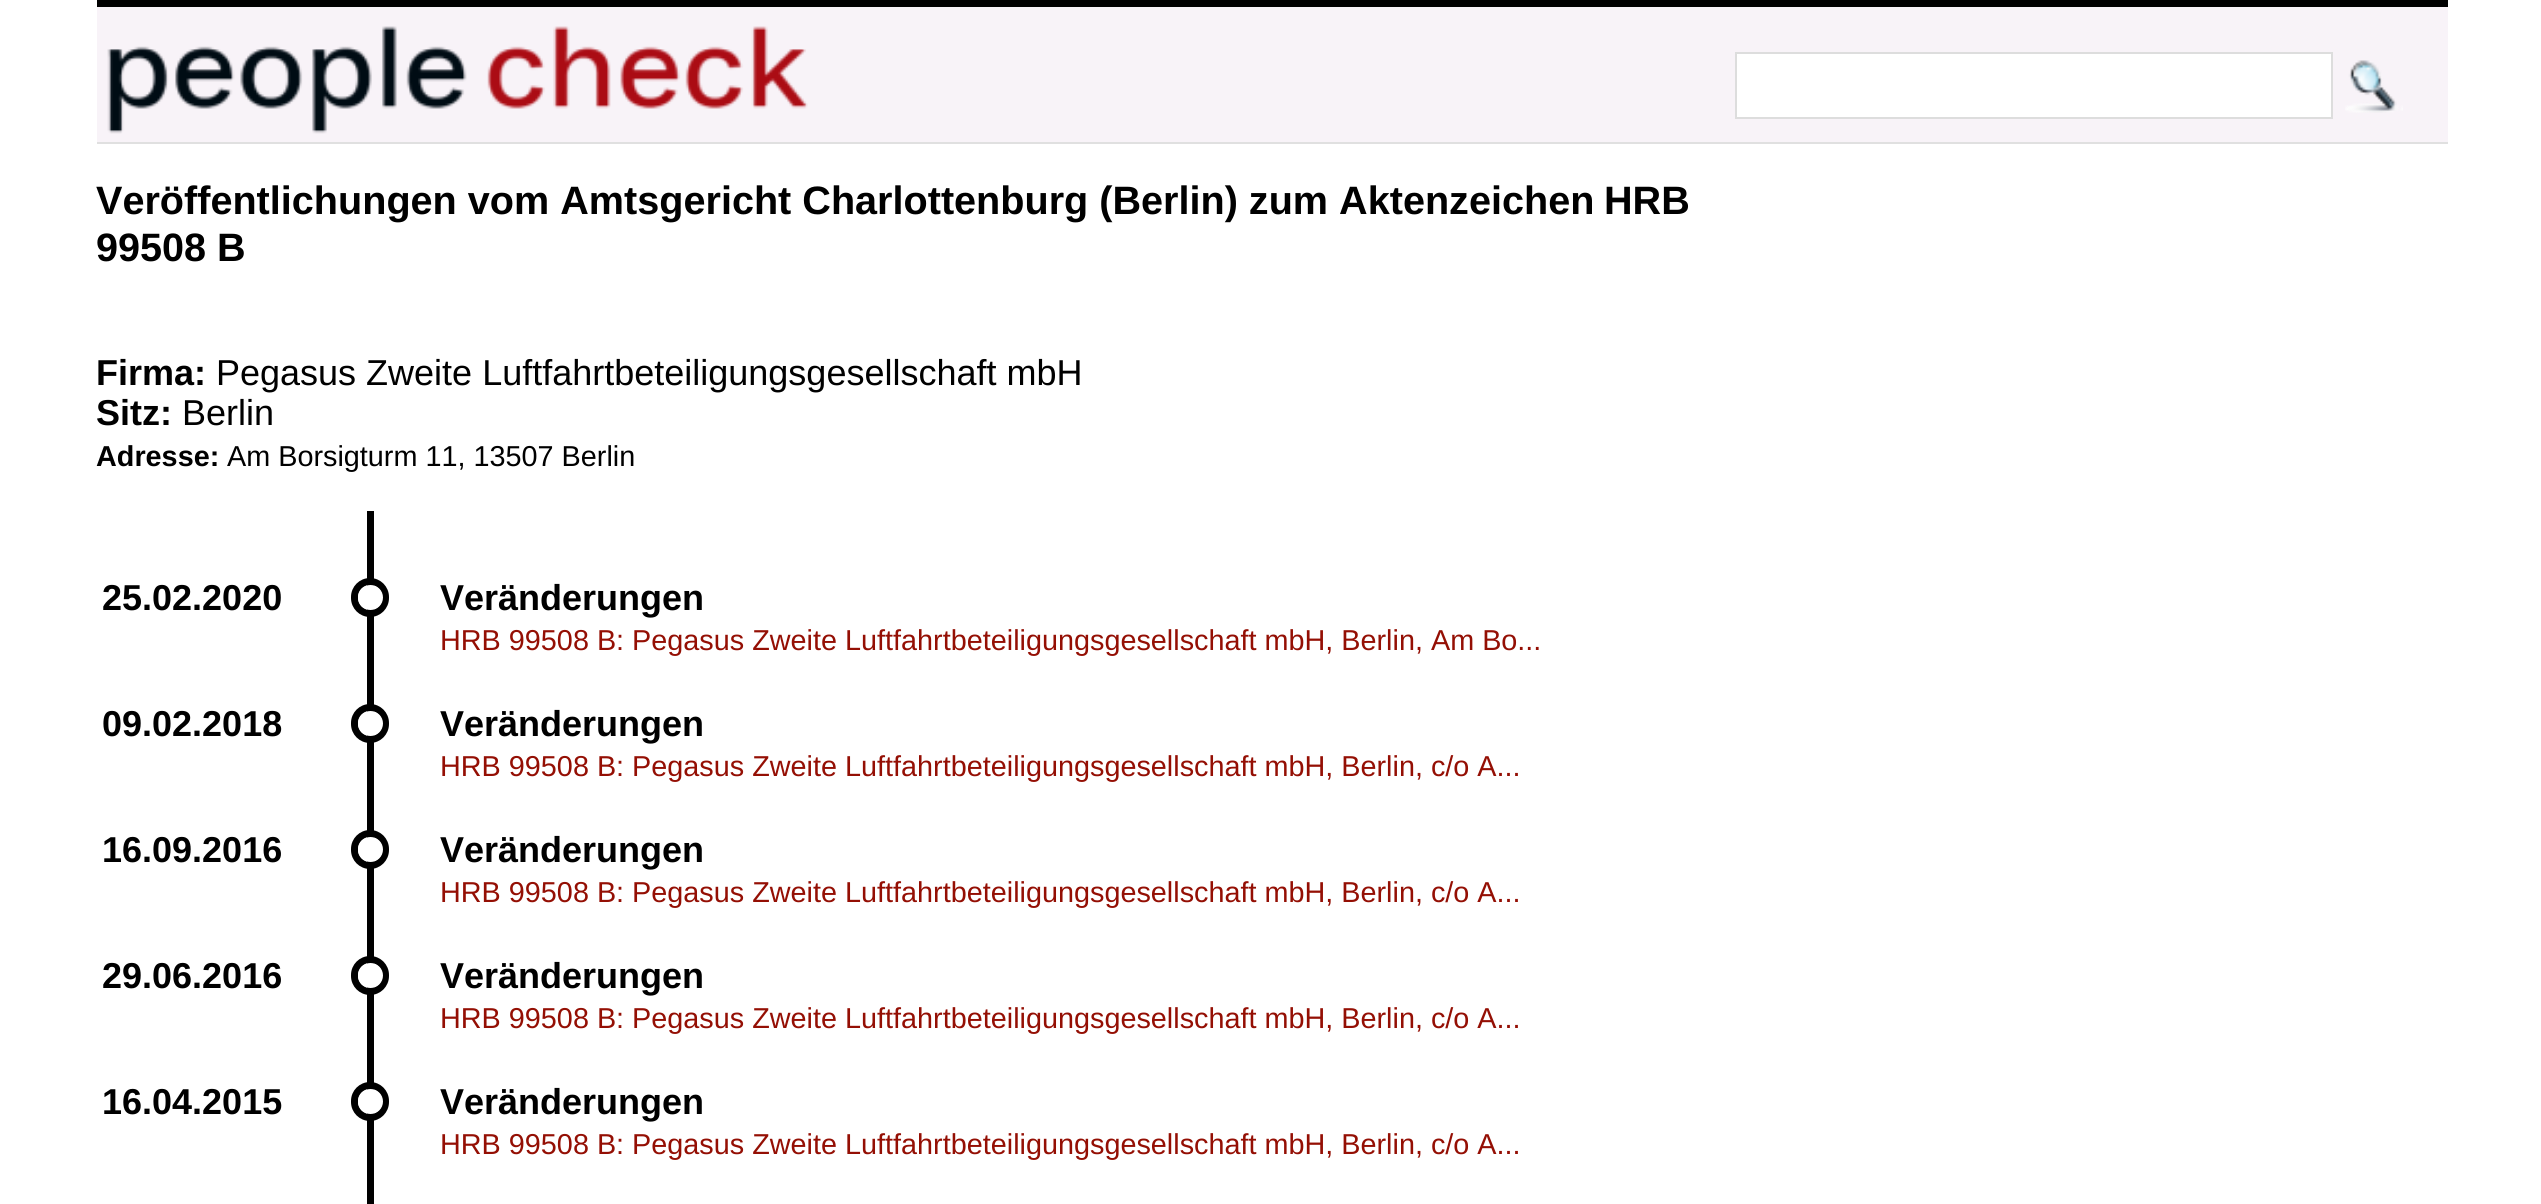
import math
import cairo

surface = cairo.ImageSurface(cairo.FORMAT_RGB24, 2541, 1204)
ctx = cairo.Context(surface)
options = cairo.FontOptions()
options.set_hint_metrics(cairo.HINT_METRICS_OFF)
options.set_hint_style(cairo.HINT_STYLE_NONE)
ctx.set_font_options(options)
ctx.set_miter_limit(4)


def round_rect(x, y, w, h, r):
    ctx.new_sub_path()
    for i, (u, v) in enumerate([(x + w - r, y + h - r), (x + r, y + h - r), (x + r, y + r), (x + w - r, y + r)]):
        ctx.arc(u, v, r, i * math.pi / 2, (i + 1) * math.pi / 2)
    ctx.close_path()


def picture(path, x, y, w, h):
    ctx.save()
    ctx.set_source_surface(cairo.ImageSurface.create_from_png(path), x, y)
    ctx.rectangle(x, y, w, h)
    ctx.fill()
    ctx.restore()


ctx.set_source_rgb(1, 1, 1)
ctx.paint()
ctx.set_source_rgb(0.969, 0.953, 0.969)
ctx.rectangle(97, 7, 2351, 135)
ctx.fill()
ctx.set_source_rgb(0, 0, 0)
ctx.rectangle(97, 0, 2351, 7)
ctx.fill()
ctx.set_source_rgb(0.878, 0.878, 0.878)
ctx.rectangle(97, 142, 2351, 2)
ctx.fill()
picture("img1.png", 107, 26, 701, 108)
ctx.set_source_rgb(1, 1, 1)
ctx.rectangle(1736, 53, 596, 65)
ctx.fill_preserve()
ctx.set_source_rgb(0.867, 0.867, 0.867)
ctx.stroke()
picture("img2.png", 2345, 60, 58, 53)
ctx.select_font_face("Liberation Sans", cairo.FONT_SLANT_NORMAL, cairo.FONT_WEIGHT_BOLD)
ctx.set_font_size(39.6)
ctx.set_source_rgb(0, 0, 0)
ctx.move_to(96, 214)
ctx.show_text("Veröffentlichungen vom Amtsgericht Charlottenburg (Berlin) zum Aktenzeichen")
ctx.move_to(1604, 214)
ctx.show_text("HRB")
ctx.move_to(96, 261)
ctx.show_text("99508 B")
ctx.set_font_size(36)
ctx.move_to(96, 385)
ctx.show_text("Firma:")
ctx.select_font_face("Liberation Sans")
ctx.move_to(216, 385)
ctx.show_text("Pegasus Zweite Luftfahrtbeteiligungsgesellschaft mbH")
ctx.select_font_face("Liberation Sans", cairo.FONT_SLANT_NORMAL, cairo.FONT_WEIGHT_BOLD)
ctx.move_to(96, 425)
ctx.show_text("Sitz:")
ctx.select_font_face("Liberation Sans")
ctx.move_to(182, 425)
ctx.show_text("Berlin")
ctx.select_font_face("Liberation Sans", cairo.FONT_SLANT_NORMAL, cairo.FONT_WEIGHT_BOLD)
ctx.set_font_size(28.8)
ctx.move_to(96, 466)
ctx.show_text("Adresse:")
ctx.select_font_face("Liberation Sans")
ctx.move_to(227, 466)
ctx.show_text("Am Borsigturm 11, 13507 Berlin")
ctx.rectangle(367, 511, 7, 693)
ctx.fill()
ctx.select_font_face("Liberation Sans", cairo.FONT_SLANT_NORMAL, cairo.FONT_WEIGHT_BOLD)
ctx.set_font_size(36)
ctx.move_to(102, 610)
ctx.show_text("25.02.2020")
round_rect(354.5, 581.5, 31, 32, 15.5)
ctx.set_line_width(7)
ctx.stroke()
ctx.set_source_rgb(1, 1, 1)
ctx.arc(370.5, 597.5, 12.5, 0, 2 * math.pi)
ctx.fill()
ctx.set_source_rgb(0, 0, 0)
ctx.move_to(440, 610)
ctx.show_text("Veränderungen")
ctx.select_font_face("Liberation Sans")
ctx.set_font_size(28.8)
ctx.set_source_rgb(0.58, 0.059, 0.016)
ctx.move_to(440, 650)
ctx.show_text("HRB 99508 B: Pegasus Zweite Luftfahrtbeteiligungsgesellschaft mbH, Berlin, Am Bo...")
ctx.select_font_face("Liberation Sans", cairo.FONT_SLANT_NORMAL, cairo.FONT_WEIGHT_BOLD)
ctx.set_font_size(36)
ctx.set_source_rgb(0, 0, 0)
ctx.move_to(102, 736)
ctx.show_text("09.02.2018")
round_rect(354.5, 707.5, 31, 32, 15.5)
ctx.stroke()
ctx.set_source_rgb(1, 1, 1)
ctx.arc(370.5, 723.5, 12.5, 0, 2 * math.pi)
ctx.fill()
ctx.set_source_rgb(0, 0, 0)
ctx.move_to(440, 736)
ctx.show_text("Veränderungen")
ctx.select_font_face("Liberation Sans")
ctx.set_font_size(28.8)
ctx.set_source_rgb(0.58, 0.059, 0.016)
ctx.move_to(440, 776)
ctx.show_text("HRB 99508 B: Pegasus Zweite Luftfahrtbeteiligungsgesellschaft mbH, Berlin, c/o A...")
ctx.select_font_face("Liberation Sans", cairo.FONT_SLANT_NORMAL, cairo.FONT_WEIGHT_BOLD)
ctx.set_font_size(36)
ctx.set_source_rgb(0, 0, 0)
ctx.move_to(102, 862)
ctx.show_text("16.09.2016")
round_rect(354.5, 833.5, 31, 32, 15.5)
ctx.stroke()
ctx.set_source_rgb(1, 1, 1)
ctx.arc(370.5, 849.5, 12.5, 0, 2 * math.pi)
ctx.fill()
ctx.set_source_rgb(0, 0, 0)
ctx.move_to(440, 862)
ctx.show_text("Veränderungen")
ctx.select_font_face("Liberation Sans")
ctx.set_font_size(28.8)
ctx.set_source_rgb(0.58, 0.059, 0.016)
ctx.move_to(440, 902)
ctx.show_text("HRB 99508 B: Pegasus Zweite Luftfahrtbeteiligungsgesellschaft mbH, Berlin, c/o A...")
ctx.select_font_face("Liberation Sans", cairo.FONT_SLANT_NORMAL, cairo.FONT_WEIGHT_BOLD)
ctx.set_font_size(36)
ctx.set_source_rgb(0, 0, 0)
ctx.move_to(102, 988)
ctx.show_text("29.06.2016")
round_rect(354.5, 959.5, 31, 32, 15.5)
ctx.stroke()
ctx.set_source_rgb(1, 1, 1)
ctx.arc(370.5, 975.5, 12.5, 0, 2 * math.pi)
ctx.fill()
ctx.set_source_rgb(0, 0, 0)
ctx.move_to(440, 988)
ctx.show_text("Veränderungen")
ctx.select_font_face("Liberation Sans")
ctx.set_font_size(28.8)
ctx.set_source_rgb(0.58, 0.059, 0.016)
ctx.move_to(440, 1028)
ctx.show_text("HRB 99508 B: Pegasus Zweite Luftfahrtbeteiligungsgesellschaft mbH, Berlin, c/o A...")
ctx.select_font_face("Liberation Sans", cairo.FONT_SLANT_NORMAL, cairo.FONT_WEIGHT_BOLD)
ctx.set_font_size(36)
ctx.set_source_rgb(0, 0, 0)
ctx.move_to(102, 1114)
ctx.show_text("16.04.2015")
round_rect(354.5, 1085.5, 31, 32, 15.5)
ctx.stroke()
ctx.set_source_rgb(1, 1, 1)
ctx.arc(370.5, 1101.5, 12.5, 0, 2 * math.pi)
ctx.fill()
ctx.set_source_rgb(0, 0, 0)
ctx.move_to(440, 1114)
ctx.show_text("Veränderungen")
ctx.select_font_face("Liberation Sans")
ctx.set_font_size(28.8)
ctx.set_source_rgb(0.58, 0.059, 0.016)
ctx.move_to(440, 1154)
ctx.show_text("HRB 99508 B: Pegasus Zweite Luftfahrtbeteiligungsgesellschaft mbH, Berlin, c/o A...")
surface.write_to_png("page.png")
